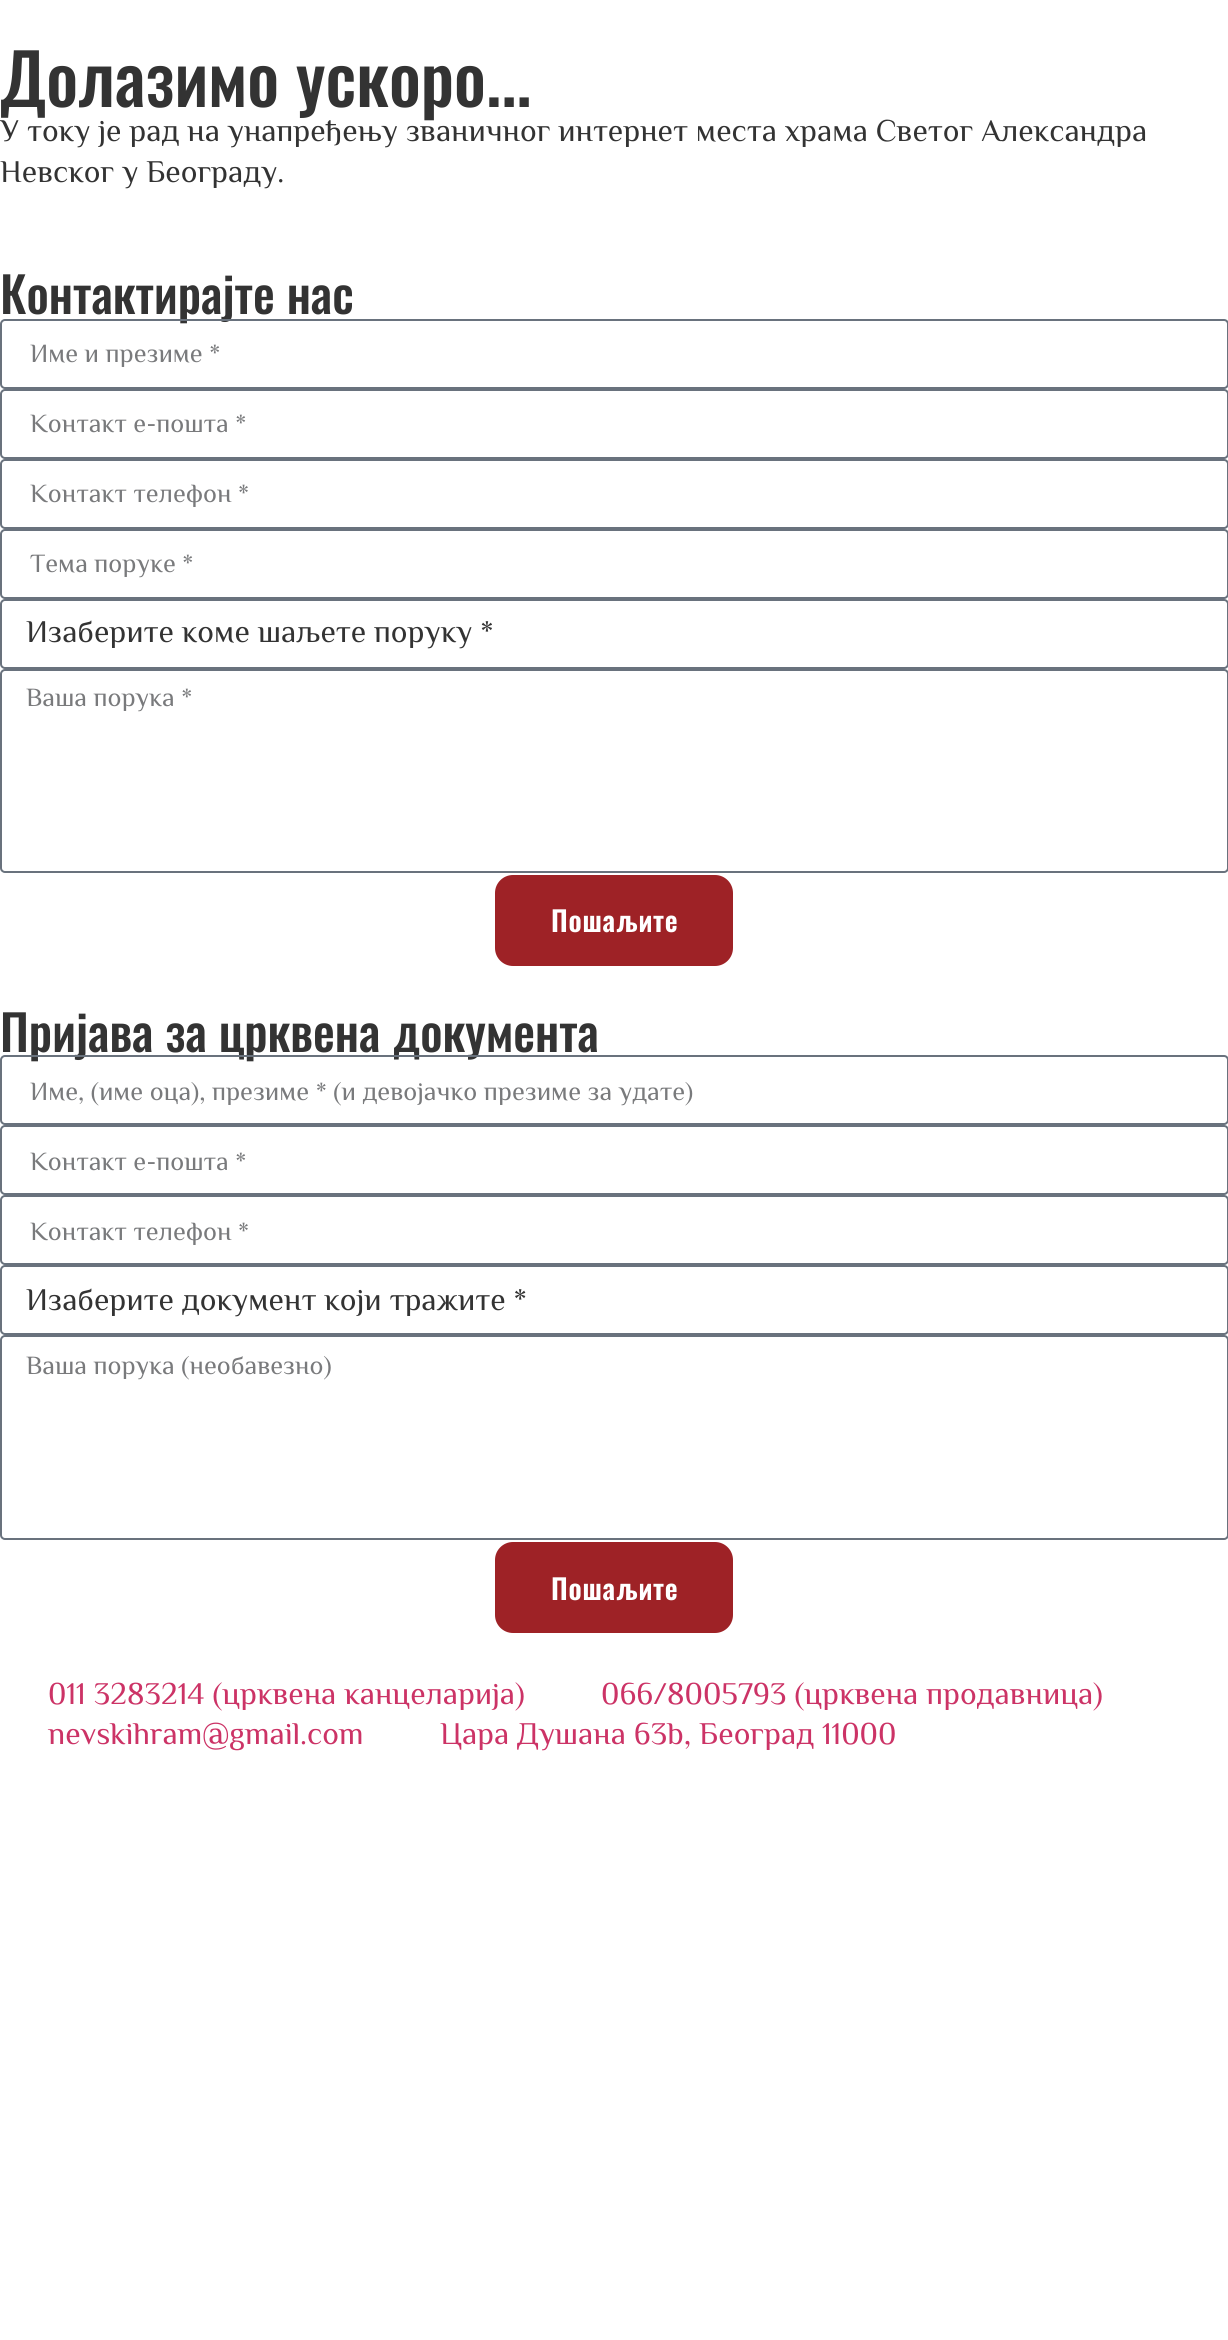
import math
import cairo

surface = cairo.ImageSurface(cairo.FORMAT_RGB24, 1228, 2340)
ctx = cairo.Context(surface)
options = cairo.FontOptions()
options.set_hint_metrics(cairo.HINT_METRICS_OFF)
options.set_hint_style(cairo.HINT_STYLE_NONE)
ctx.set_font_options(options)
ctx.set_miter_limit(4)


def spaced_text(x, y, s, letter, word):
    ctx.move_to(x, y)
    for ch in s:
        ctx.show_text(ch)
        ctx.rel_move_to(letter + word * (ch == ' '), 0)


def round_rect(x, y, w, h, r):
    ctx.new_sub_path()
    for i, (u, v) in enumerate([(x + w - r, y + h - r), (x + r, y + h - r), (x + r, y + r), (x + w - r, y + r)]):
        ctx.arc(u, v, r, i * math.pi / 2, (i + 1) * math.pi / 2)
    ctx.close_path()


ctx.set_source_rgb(1, 1, 1)
ctx.paint()
ctx.select_font_face("Oswald Medium")
ctx.set_font_size(70)
ctx.set_source_rgb(0.2, 0.2, 0.2)
ctx.move_to(0, 107)
ctx.show_text("Долазимо ускоро...")
ctx.select_font_face("Philosopher")
ctx.set_font_size(31.5)
ctx.move_to(0, 141)
ctx.show_text("У току је рад на унапређењу званичног интернет места храма Светог Александра")
ctx.move_to(0, 182)
ctx.show_text("Невског у Београду.")
ctx.select_font_face("Oswald Medium")
ctx.set_font_size(49)
ctx.move_to(0, 314)
ctx.show_text("Контактирајте нас")
round_rect(1, 320, 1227, 68, 4)
ctx.set_source_rgb(0.412, 0.447, 0.49)
ctx.stroke()
ctx.select_font_face("Philosopher")
ctx.set_font_size(26.25)
ctx.set_source_rgb(0.475, 0.478, 0.486)
ctx.move_to(30, 362)
ctx.show_text("Име и презиме *")
round_rect(1, 390, 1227, 68, 4)
ctx.set_source_rgb(0.412, 0.447, 0.49)
ctx.stroke()
ctx.set_source_rgb(0.475, 0.478, 0.486)
ctx.move_to(30, 432)
ctx.show_text("Контакт е-пошта *")
round_rect(1, 460, 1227, 68, 4)
ctx.set_source_rgb(0.412, 0.447, 0.49)
ctx.stroke()
ctx.set_source_rgb(0.475, 0.478, 0.486)
ctx.move_to(30, 502)
ctx.show_text("Контакт телефон *")
round_rect(1, 530, 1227, 68, 4)
ctx.set_source_rgb(0.412, 0.447, 0.49)
ctx.stroke()
ctx.set_source_rgb(0.475, 0.478, 0.486)
ctx.move_to(30, 572)
ctx.show_text("Тема поруке *")
round_rect(1, 600, 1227, 68, 4)
ctx.set_source_rgb(0.412, 0.447, 0.49)
ctx.stroke()
ctx.set_font_size(31.5)
ctx.set_source_rgb(0.2, 0.2, 0.2)
ctx.move_to(26, 642)
ctx.show_text("Изаберите коме шаљете поруку *")
round_rect(1, 670, 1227, 202, 4)
ctx.set_source_rgb(0.412, 0.447, 0.49)
ctx.stroke()
ctx.set_font_size(26.25)
ctx.set_source_rgb(0.475, 0.478, 0.486)
ctx.move_to(26, 706)
ctx.show_text("Ваша порука *")
ctx.set_source_rgb(0.62, 0.133, 0.149)
round_rect(495, 875, 238, 91, 18)
ctx.fill()
ctx.select_font_face("Oswald SemiBold")
ctx.set_font_size(28)
ctx.set_source_rgb(1, 1, 1)
spaced_text(551, 932, "Пошаљите", 0.75, 0)
ctx.select_font_face("Oswald Medium")
ctx.set_font_size(49)
ctx.set_source_rgb(0.2, 0.2, 0.2)
ctx.move_to(0, 1052)
ctx.show_text("Пријава за црквена документа")
round_rect(1, 1056, 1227, 68, 4)
ctx.set_source_rgb(0.412, 0.447, 0.49)
ctx.stroke()
ctx.select_font_face("Philosopher")
ctx.set_font_size(26.25)
ctx.set_source_rgb(0.475, 0.478, 0.486)
ctx.move_to(30, 1100)
ctx.show_text("Име, (име оца), презиме * (и девојачко презиме за удате)")
round_rect(1, 1126, 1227, 68, 4)
ctx.set_source_rgb(0.412, 0.447, 0.49)
ctx.stroke()
ctx.set_source_rgb(0.475, 0.478, 0.486)
ctx.move_to(30, 1170)
ctx.show_text("Контакт е-пошта *")
round_rect(1, 1196, 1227, 68, 4)
ctx.set_source_rgb(0.412, 0.447, 0.49)
ctx.stroke()
ctx.set_source_rgb(0.475, 0.478, 0.486)
ctx.move_to(30, 1240)
ctx.show_text("Контакт телефон *")
round_rect(1, 1266, 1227, 68, 4)
ctx.set_source_rgb(0.412, 0.447, 0.49)
ctx.stroke()
ctx.set_font_size(31.5)
ctx.set_source_rgb(0.2, 0.2, 0.2)
ctx.move_to(26, 1310)
ctx.show_text("Изаберите документ који тражите *")
round_rect(1, 1336, 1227, 203, 4)
ctx.set_source_rgb(0.412, 0.447, 0.49)
ctx.stroke()
ctx.set_font_size(26.25)
ctx.set_source_rgb(0.475, 0.478, 0.486)
ctx.move_to(26, 1374)
ctx.show_text("Ваша порука (необавезно)")
ctx.set_source_rgb(0.62, 0.133, 0.149)
round_rect(495, 1542, 238, 91, 18)
ctx.fill()
ctx.select_font_face("Oswald SemiBold")
ctx.set_font_size(28)
ctx.set_source_rgb(1, 1, 1)
spaced_text(551, 1600, "Пошаљите", 0.75, 0)
ctx.select_font_face("Philosopher")
ctx.set_font_size(31.5)
ctx.set_source_rgb(0.8, 0.2, 0.4)
ctx.move_to(48, 1704)
ctx.show_text("011 3283214 (црквена канцеларија)")
ctx.move_to(601, 1704)
ctx.show_text("066/8005793 (црквена продавница)")
ctx.move_to(48, 1744)
ctx.show_text("nevskihram@gmail.com")
ctx.move_to(440, 1744)
ctx.show_text("Цара Душана 63b, Београд 11000")
surface.write_to_png("page.png")
